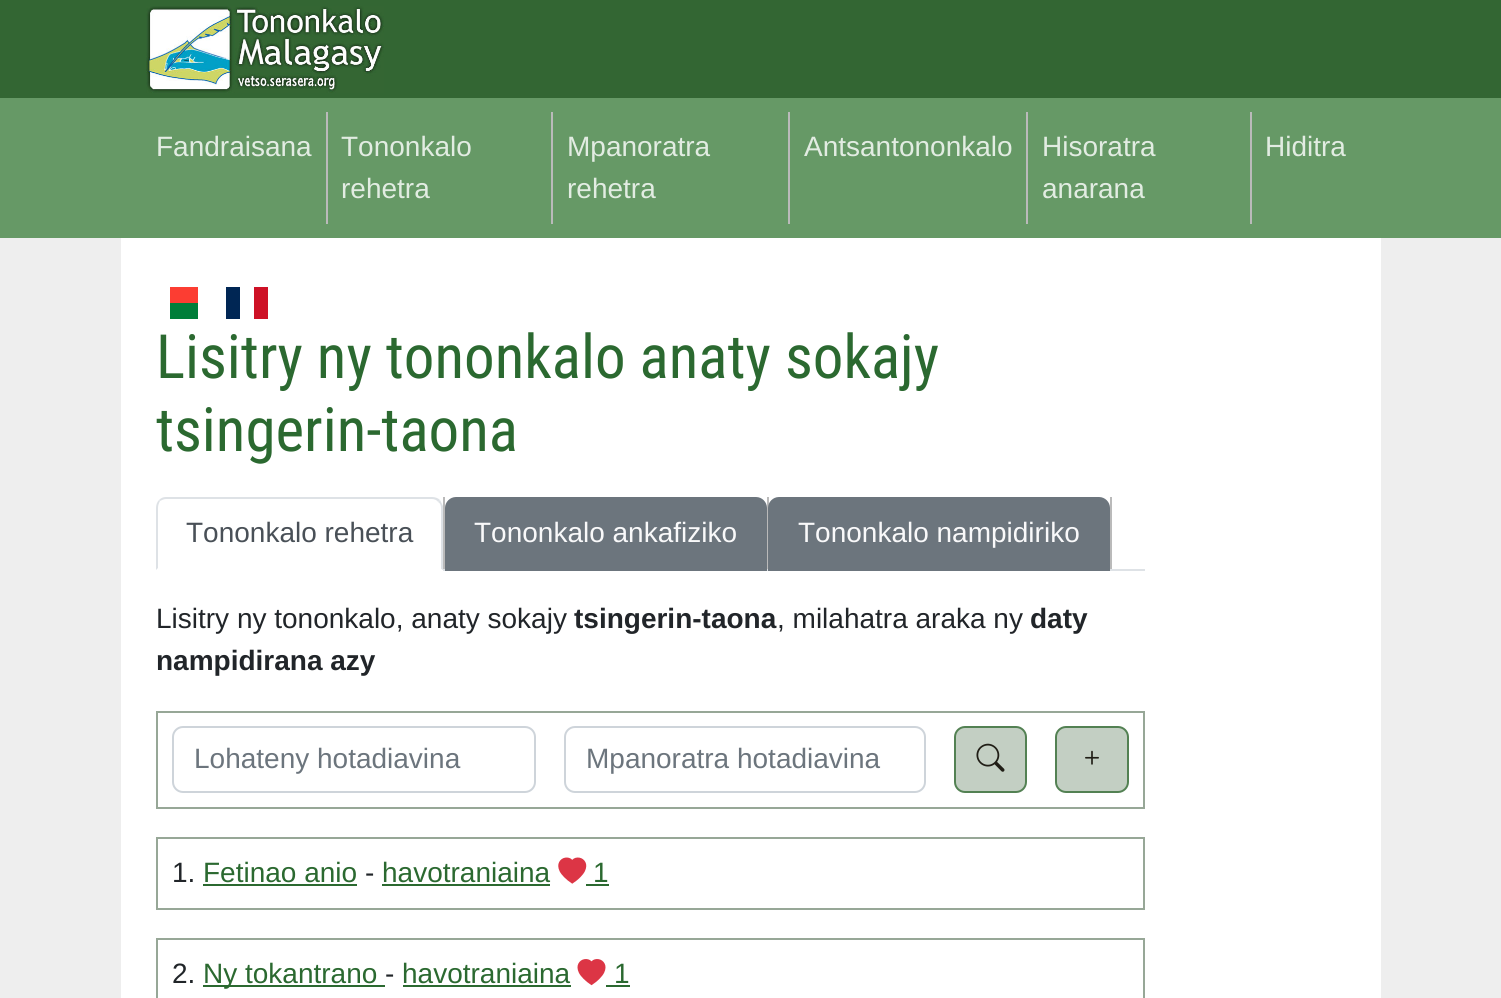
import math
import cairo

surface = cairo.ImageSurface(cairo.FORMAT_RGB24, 1501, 998)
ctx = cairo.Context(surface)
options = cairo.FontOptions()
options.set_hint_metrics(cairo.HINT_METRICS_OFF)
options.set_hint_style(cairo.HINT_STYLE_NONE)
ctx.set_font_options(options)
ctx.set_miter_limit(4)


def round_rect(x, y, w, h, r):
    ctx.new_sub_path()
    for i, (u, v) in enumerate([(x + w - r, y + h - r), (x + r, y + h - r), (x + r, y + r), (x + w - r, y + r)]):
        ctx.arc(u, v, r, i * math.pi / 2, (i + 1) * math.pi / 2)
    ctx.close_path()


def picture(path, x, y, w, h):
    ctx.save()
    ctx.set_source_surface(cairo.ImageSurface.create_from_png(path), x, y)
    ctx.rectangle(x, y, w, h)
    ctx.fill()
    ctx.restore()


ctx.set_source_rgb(0.933, 0.933, 0.933)
ctx.paint()
ctx.set_source_rgb(0.2, 0.4, 0.2)
ctx.rectangle(0, 0, 1501, 98)
ctx.fill()
picture("img1.png", 146, 6, 238, 87)
ctx.set_source_rgb(0.4, 0.6, 0.4)
ctx.rectangle(0, 98, 1501, 140)
ctx.fill()
ctx.set_source_rgb(0.729, 0.729, 0.729)
ctx.rectangle(326, 112, 2, 112)
ctx.fill()
ctx.select_font_face("Liberation Sans")
ctx.set_font_size(28)
ctx.set_source_rgb(0.886, 0.925, 0.886)
ctx.move_to(156, 156)
ctx.show_text("Fandraisana")
ctx.set_source_rgb(0.729, 0.729, 0.729)
ctx.rectangle(551, 112, 2, 112)
ctx.fill()
ctx.set_source_rgb(0.886, 0.925, 0.886)
ctx.move_to(341, 156)
ctx.show_text("Tononkalo")
ctx.move_to(341, 198)
ctx.show_text("rehetra")
ctx.set_source_rgb(0.729, 0.729, 0.729)
ctx.rectangle(788, 112, 2, 112)
ctx.fill()
ctx.set_source_rgb(0.886, 0.925, 0.886)
ctx.move_to(567, 156)
ctx.show_text("Mpanoratra")
ctx.move_to(567, 198)
ctx.show_text("rehetra")
ctx.set_source_rgb(0.729, 0.729, 0.729)
ctx.rectangle(1026, 112, 2, 112)
ctx.fill()
ctx.set_source_rgb(0.886, 0.925, 0.886)
ctx.move_to(804, 156)
ctx.show_text("Antsantononkalo")
ctx.set_source_rgb(0.729, 0.729, 0.729)
ctx.rectangle(1250, 112, 2, 112)
ctx.fill()
ctx.set_source_rgb(0.886, 0.925, 0.886)
ctx.move_to(1042, 156)
ctx.show_text("Hisoratra")
ctx.move_to(1042, 198)
ctx.show_text("anarana")
ctx.move_to(1265, 156)
ctx.show_text("Hiditra")
ctx.set_source_rgb(1, 1, 1)
ctx.rectangle(121, 238, 1260, 760)
ctx.fill()
ctx.set_source_rgb(0.988, 0.239, 0.196)
ctx.rectangle(170, 287, 28, 16)
ctx.fill()
ctx.set_source_rgb(0, 0.494, 0.227)
ctx.rectangle(170, 303, 28, 16)
ctx.fill()
ctx.set_source_rgb(0, 0.149, 0.329)
ctx.rectangle(226, 287, 14, 32)
ctx.fill()
ctx.set_source_rgb(0.808, 0.067, 0.149)
ctx.rectangle(254, 287, 14, 32)
ctx.fill()
ctx.select_font_face("Roboto Condensed")
ctx.set_font_size(61)
ctx.set_source_rgb(0.169, 0.412, 0.188)
ctx.move_to(156, 378)
ctx.show_text("Lisitry ny tononkalo anaty sokajy")
ctx.move_to(156, 451)
ctx.show_text("tsingerin-taona")
ctx.set_source_rgb(0.871, 0.886, 0.902)
ctx.rectangle(443, 569, 702, 2)
ctx.fill()
ctx.set_source_rgb(0.729, 0.729, 0.729)
ctx.rectangle(443, 497, 2, 72)
ctx.fill()
ctx.set_source_rgb(0.871, 0.886, 0.902)
ctx.new_path()
ctx.move_to(166, 497)
ctx.curve_to(163, 497, 161, 498, 159, 500)
ctx.line_to(160, 501)
ctx.curve_to(162, 500, 164, 499, 166, 499)
ctx.line_to(432, 499)
ctx.curve_to(434, 499, 437, 500, 438, 502)
ctx.line_to(440, 500)
ctx.curve_to(438, 498, 435, 497, 432, 497)
ctx.close_path()
ctx.fill()
ctx.new_path()
ctx.move_to(443, 570)
ctx.line_to(441, 569)
ctx.line_to(441, 508)
ctx.curve_to(441, 505, 440, 503, 438, 502)
ctx.line_to(440, 500)
ctx.curve_to(441, 502, 442, 504, 443, 506)
ctx.close_path()
ctx.fill()
ctx.set_source_rgb(1, 1, 1)
ctx.new_path()
ctx.move_to(442, 570)
ctx.line_to(156, 570)
ctx.line_to(158, 568)
ctx.line_to(158, 569)
ctx.line_to(441, 569)
ctx.close_path()
ctx.fill()
ctx.set_source_rgb(0.871, 0.886, 0.902)
ctx.new_path()
ctx.move_to(159, 500)
ctx.curve_to(157, 502, 156, 505, 156, 508)
ctx.line_to(156, 570)
ctx.line_to(158, 568)
ctx.line_to(158, 508)
ctx.curve_to(158, 505, 159, 503, 160, 501)
ctx.close_path()
ctx.fill()
ctx.select_font_face("Liberation Sans")
ctx.set_font_size(28)
ctx.set_source_rgb(0.286, 0.314, 0.341)
ctx.move_to(186, 542)
ctx.show_text("Tononkalo rehetra")
ctx.set_source_rgb(0.729, 0.729, 0.729)
ctx.rectangle(767, 497, 2, 72)
ctx.fill()
ctx.set_source_rgb(0.424, 0.459, 0.49)
ctx.new_path()
ctx.move_to(456, 497)
ctx.line_to(756, 497)
ctx.curve_to(762, 497, 767, 502, 767, 508)
ctx.line_to(767, 571)
ctx.line_to(445, 571)
ctx.line_to(445, 508)
ctx.curve_to(445, 502, 450, 497, 456, 497)
ctx.close_path()
ctx.fill()
ctx.set_source_rgb(0.973, 0.976, 0.98)
ctx.move_to(474, 542)
ctx.show_text("Tononkalo ankafiziko")
ctx.set_source_rgb(0.729, 0.729, 0.729)
ctx.rectangle(1110, 497, 2, 72)
ctx.fill()
ctx.set_source_rgb(0.424, 0.459, 0.49)
ctx.new_path()
ctx.move_to(779, 497)
ctx.line_to(1099, 497)
ctx.curve_to(1105, 497, 1110, 502, 1110, 508)
ctx.line_to(1110, 571)
ctx.line_to(768, 571)
ctx.line_to(768, 508)
ctx.curve_to(768, 502, 773, 497, 779, 497)
ctx.close_path()
ctx.fill()
ctx.set_source_rgb(0.973, 0.976, 0.98)
ctx.move_to(798, 542)
ctx.show_text("Tononkalo nampidiriko")
ctx.set_source_rgb(0.129, 0.145, 0.161)
ctx.move_to(156, 628)
ctx.show_text("Lisitry ny tononkalo, anaty sokajy")
ctx.select_font_face("Liberation Sans", cairo.FONT_SLANT_NORMAL, cairo.FONT_WEIGHT_BOLD)
ctx.move_to(574, 628)
ctx.show_text("tsingerin-taona")
ctx.select_font_face("Liberation Sans")
ctx.move_to(777, 628)
ctx.show_text(", milahatra araka ny")
ctx.select_font_face("Liberation Sans", cairo.FONT_SLANT_NORMAL, cairo.FONT_WEIGHT_BOLD)
ctx.move_to(1030, 628)
ctx.show_text("daty")
ctx.move_to(156, 670)
ctx.show_text("nampidirana azy")
ctx.rectangle(157, 712, 987, 96)
ctx.set_source_rgb(0.592, 0.655, 0.592)
ctx.stroke()
round_rect(173, 727, 362, 65, 10)
ctx.set_source_rgb(0.808, 0.831, 0.855)
ctx.stroke()
ctx.select_font_face("Liberation Sans")
ctx.set_source_rgb(0.424, 0.459, 0.49)
ctx.move_to(194, 768)
ctx.show_text("Lohateny hotadiavina")
round_rect(565, 727, 360, 65, 10)
ctx.set_source_rgb(0.808, 0.831, 0.855)
ctx.stroke()
ctx.set_source_rgb(0.424, 0.459, 0.49)
ctx.move_to(586, 768)
ctx.show_text("Mpanoratra hotadiavina")
ctx.set_source_rgb(0.765, 0.812, 0.765)
round_rect(955, 727, 71, 65, 10)
ctx.fill_preserve()
ctx.set_source_rgb(0.325, 0.506, 0.325)
ctx.stroke()
picture("img2.png", 976, 743, 29, 29)
ctx.set_source_rgb(0.765, 0.812, 0.765)
round_rect(1056, 727, 72, 65, 10)
ctx.fill_preserve()
ctx.set_source_rgb(0.325, 0.506, 0.325)
ctx.stroke()
picture("img3.png", 1085, 750, 14, 15)
ctx.rectangle(157, 838, 987, 71)
ctx.set_source_rgb(0.592, 0.655, 0.592)
ctx.stroke()
ctx.set_source_rgb(0.129, 0.145, 0.161)
ctx.move_to(172, 882)
ctx.show_text("1.")
ctx.set_source_rgb(0.169, 0.412, 0.188)
ctx.move_to(203, 882)
ctx.show_text("Fetinao anio")
ctx.rectangle(203, 884, 154, 2)
ctx.fill()
ctx.set_source_rgb(0.129, 0.145, 0.161)
ctx.move_to(365, 882)
ctx.show_text("-")
ctx.set_source_rgb(0.169, 0.412, 0.188)
ctx.move_to(382, 882)
ctx.show_text("havotraniaina")
ctx.rectangle(382, 884, 168, 2)
ctx.fill()
picture("img4.png", 558, 857, 29, 27)
ctx.move_to(593, 882)
ctx.show_text("1")
ctx.rectangle(586, 884, 23, 2)
ctx.fill()
ctx.rectangle(157, 939, 987, 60)
ctx.set_source_rgb(0.592, 0.655, 0.592)
ctx.stroke()
ctx.set_source_rgb(0.129, 0.145, 0.161)
ctx.move_to(172, 983)
ctx.show_text("2.")
ctx.set_source_rgb(0.169, 0.412, 0.188)
ctx.rectangle(203, 985, 182, 2)
ctx.fill()
ctx.move_to(203, 983)
ctx.show_text("Ny tokantrano")
ctx.set_source_rgb(0.129, 0.145, 0.161)
ctx.move_to(385, 983)
ctx.show_text("-")
ctx.set_source_rgb(0.169, 0.412, 0.188)
ctx.move_to(402, 983)
ctx.show_text("havotraniaina")
ctx.rectangle(403, 985, 168, 2)
ctx.fill()
picture("img5.png", 577, 959, 29, 27)
ctx.move_to(614, 983)
ctx.show_text("1")
ctx.rectangle(606, 985, 24, 2)
ctx.fill()
surface.write_to_png("page.png")
